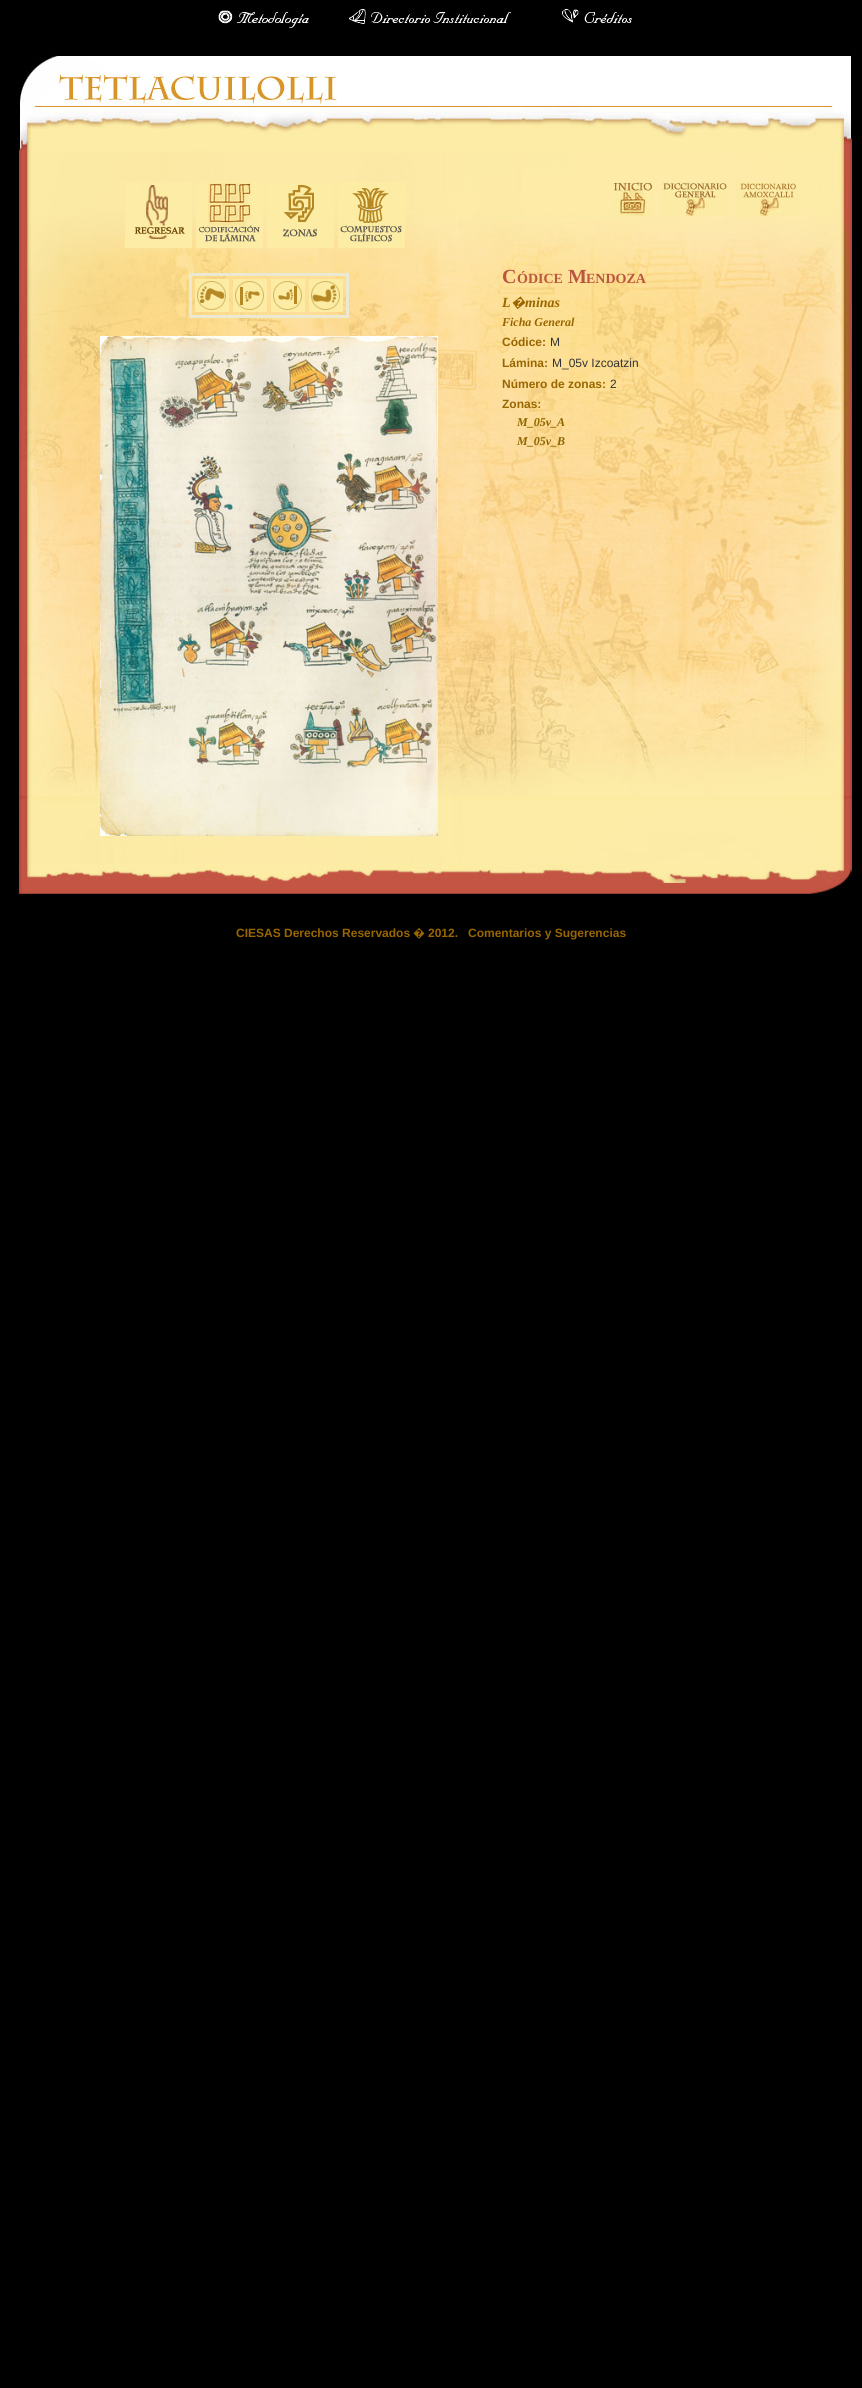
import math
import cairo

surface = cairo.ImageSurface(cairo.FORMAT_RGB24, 862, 2388)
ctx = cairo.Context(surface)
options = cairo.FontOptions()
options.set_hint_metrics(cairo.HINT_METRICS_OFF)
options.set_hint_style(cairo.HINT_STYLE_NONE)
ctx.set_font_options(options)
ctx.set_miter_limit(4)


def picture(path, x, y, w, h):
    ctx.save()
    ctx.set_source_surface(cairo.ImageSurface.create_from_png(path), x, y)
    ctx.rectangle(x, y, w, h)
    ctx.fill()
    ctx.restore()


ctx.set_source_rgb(0, 0, 0)
ctx.paint()
picture("img1.png", 218, 10, 91, 18)
picture("img2.png", 349, 9, 162, 15)
picture("img3.png", 562, 9, 70, 14)
picture("img4.png", 18, 151, 834, 713)
picture("img5.png", 18, 33, 839, 80)
picture("img6.png", 17, 113, 840, 38)
picture("img7.png", 100, 336, 338, 500)
picture("img8.png", 125, 182, 67, 66)
picture("img9.png", 196, 182, 67, 66)
picture("img10.png", 267, 183, 67, 65)
picture("img11.png", 338, 182, 67, 66)
ctx.rectangle(190.5, 274.5, 157, 42)
ctx.set_source_rgb(0.925, 0.914, 0.824)
ctx.set_line_width(3)
ctx.stroke()
picture("img12.png", 195, 279, 34, 33)
picture("img13.png", 233, 279, 34, 33)
picture("img14.png", 271, 279, 34, 33)
picture("img15.png", 309, 279, 34, 33)
picture("img16.png", 613, 182, 40, 34)
picture("img17.png", 661, 182, 66, 34)
picture("img18.png", 735, 182, 64, 34)
ctx.select_font_face("Liberation Serif", cairo.FONT_SLANT_NORMAL, cairo.FONT_WEIGHT_BOLD)
ctx.set_font_size(20)
ctx.set_source_rgb(0.733, 0.341, 0.251)
ctx.move_to(502, 283)
ctx.show_text("C")
ctx.set_font_size(14)
ctx.move_to(517, 283)
ctx.show_text("ÓDICE")
ctx.set_font_size(20)
ctx.move_to(568, 283)
ctx.show_text("M")
ctx.set_font_size(14)
ctx.move_to(586, 283)
ctx.show_text("ENDOZA")
ctx.select_font_face("Liberation Serif", cairo.FONT_SLANT_ITALIC, cairo.FONT_WEIGHT_BOLD)
ctx.set_source_rgb(0.6, 0.4, 0)
ctx.move_to(502, 307)
ctx.show_text("L")
ctx.select_font_face("Noto Sans", cairo.FONT_SLANT_ITALIC, cairo.FONT_WEIGHT_BOLD)
ctx.move_to(511, 307)
ctx.show_text("�")
ctx.select_font_face("Liberation Serif", cairo.FONT_SLANT_ITALIC, cairo.FONT_WEIGHT_BOLD)
ctx.move_to(525, 307)
ctx.show_text("minas")
ctx.set_font_size(12)
ctx.move_to(502, 326)
ctx.show_text("Ficha General")
ctx.select_font_face("Liberation Sans", cairo.FONT_SLANT_NORMAL, cairo.FONT_WEIGHT_BOLD)
ctx.move_to(502, 346)
ctx.show_text("Códice:")
ctx.select_font_face("Liberation Sans")
ctx.set_source_rgb(0.2, 0.2, 0.2)
ctx.move_to(550, 346)
ctx.show_text("M")
ctx.select_font_face("Liberation Sans", cairo.FONT_SLANT_NORMAL, cairo.FONT_WEIGHT_BOLD)
ctx.set_source_rgb(0.6, 0.4, 0)
ctx.move_to(502, 367)
ctx.show_text("Lámina:")
ctx.select_font_face("Liberation Sans")
ctx.set_source_rgb(0.2, 0.2, 0.2)
ctx.move_to(552, 367)
ctx.show_text("M_05v Izcoatzin")
ctx.select_font_face("Liberation Sans", cairo.FONT_SLANT_NORMAL, cairo.FONT_WEIGHT_BOLD)
ctx.set_source_rgb(0.6, 0.4, 0)
ctx.move_to(502, 388)
ctx.show_text("Número de zonas:")
ctx.select_font_face("Liberation Sans")
ctx.set_source_rgb(0.2, 0.2, 0.2)
ctx.move_to(610, 388)
ctx.show_text("2")
ctx.select_font_face("Liberation Sans", cairo.FONT_SLANT_NORMAL, cairo.FONT_WEIGHT_BOLD)
ctx.set_source_rgb(0.6, 0.4, 0)
ctx.move_to(502, 408)
ctx.show_text("Zonas:")
ctx.select_font_face("Liberation Serif", cairo.FONT_SLANT_ITALIC, cairo.FONT_WEIGHT_BOLD)
ctx.set_source_rgb(0.561, 0.4, 0)
ctx.move_to(517, 426)
ctx.show_text("M_05v_A")
ctx.move_to(517, 445)
ctx.show_text("M_05v_B")
picture("img19.png", 17, 864, 840, 36)
ctx.select_font_face("Liberation Sans", cairo.FONT_SLANT_NORMAL, cairo.FONT_WEIGHT_BOLD)
ctx.set_source_rgb(0.6, 0.4, 0)
ctx.move_to(236, 937)
ctx.show_text("CIESAS Derechos Reservados")
ctx.select_font_face("Noto Sans", cairo.FONT_SLANT_NORMAL, cairo.FONT_WEIGHT_BOLD)
ctx.move_to(413, 937)
ctx.show_text("�")
ctx.select_font_face("Liberation Sans", cairo.FONT_SLANT_NORMAL, cairo.FONT_WEIGHT_BOLD)
ctx.move_to(428, 937)
ctx.show_text("2012.")
ctx.move_to(468, 937)
ctx.show_text("Comentarios y Sugerencias")
surface.write_to_png("page.png")
